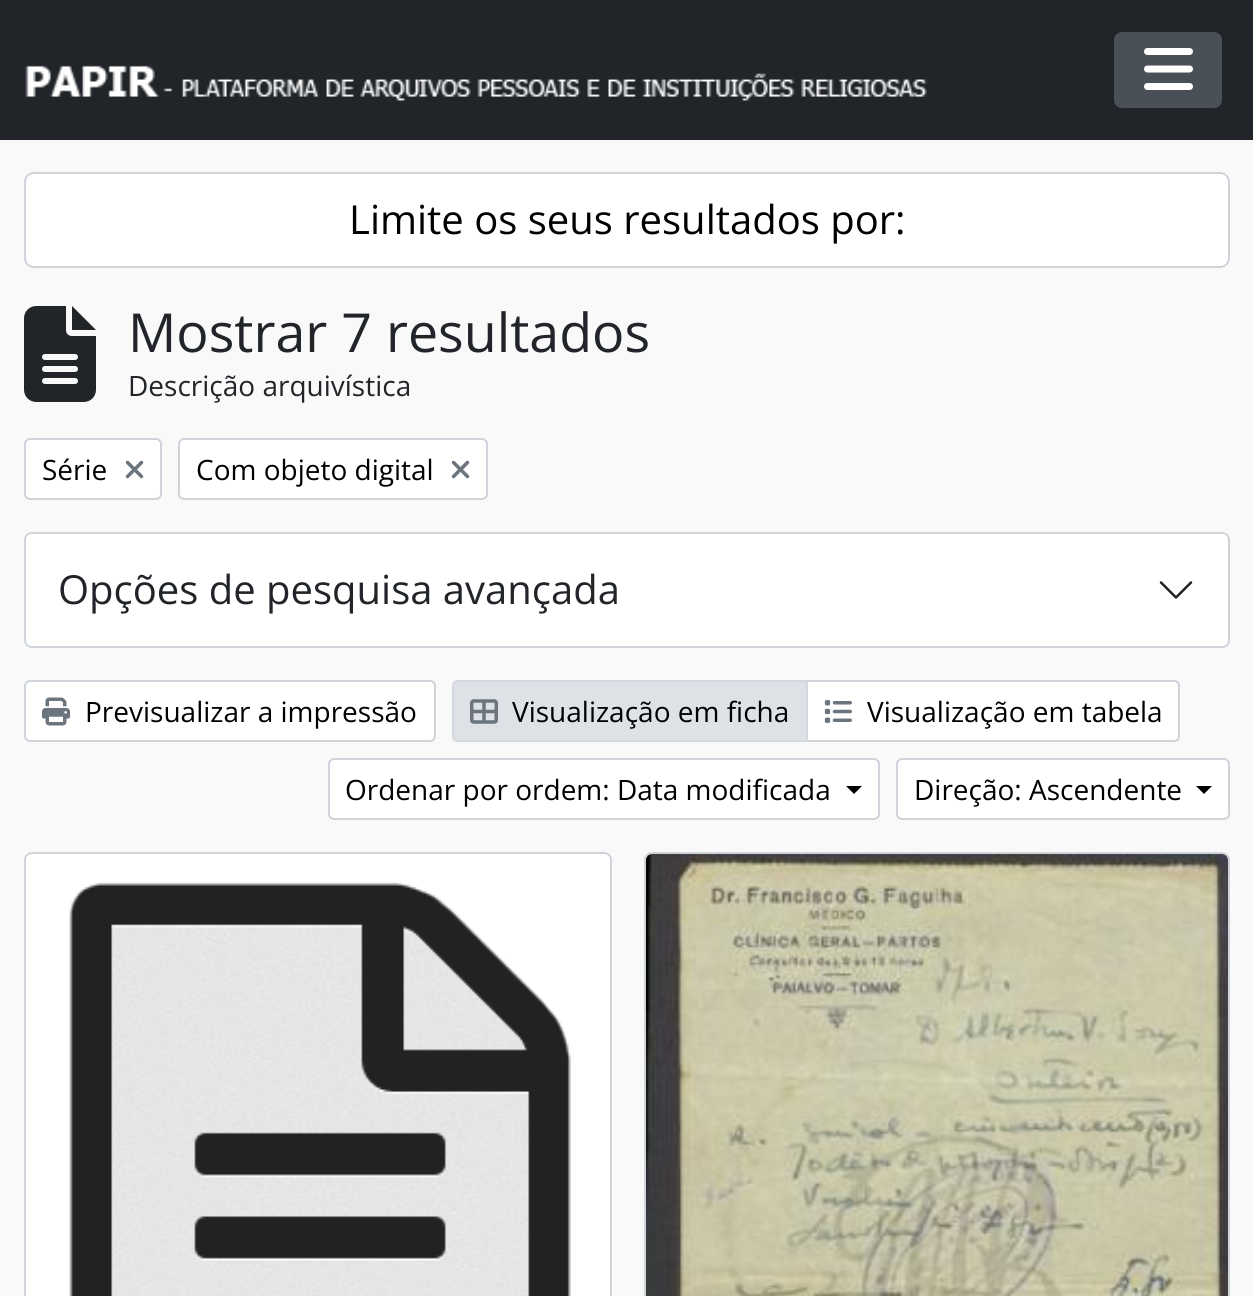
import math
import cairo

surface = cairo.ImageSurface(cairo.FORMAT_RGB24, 1253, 1296)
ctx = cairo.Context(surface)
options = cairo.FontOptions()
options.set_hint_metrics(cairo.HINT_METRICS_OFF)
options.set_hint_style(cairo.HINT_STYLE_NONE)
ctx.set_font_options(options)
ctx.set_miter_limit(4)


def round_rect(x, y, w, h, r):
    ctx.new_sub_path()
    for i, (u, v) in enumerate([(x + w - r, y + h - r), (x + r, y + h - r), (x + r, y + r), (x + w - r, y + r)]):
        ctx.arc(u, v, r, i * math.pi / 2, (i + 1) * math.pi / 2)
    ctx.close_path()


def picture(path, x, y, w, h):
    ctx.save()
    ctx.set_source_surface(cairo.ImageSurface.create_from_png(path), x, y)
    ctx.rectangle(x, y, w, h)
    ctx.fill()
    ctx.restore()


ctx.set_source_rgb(0.973, 0.976, 0.98)
ctx.paint()
ctx.set_source_rgb(0.129, 0.145, 0.161)
ctx.rectangle(0, 0, 1253, 140)
ctx.fill()
picture("img1.png", 25, 65, 902, 36)
ctx.set_source_rgb(0.286, 0.314, 0.341)
round_rect(1115, 33, 106, 74, 7)
ctx.fill_preserve()
ctx.stroke()
picture("img2.png", 1144, 48, 49, 42)
ctx.set_source_rgb(1, 1, 1)
round_rect(25, 173, 1204, 94, 9)
ctx.fill_preserve()
ctx.set_source_rgb(0.808, 0.831, 0.855)
ctx.stroke()
ctx.select_font_face("Open Sans")
ctx.set_font_size(40)
ctx.set_source_rgb(0, 0, 0)
ctx.move_to(349, 234)
ctx.show_text("Limite os seus resultados por:")
picture("img3.png", 24, 306, 72, 96)
ctx.set_font_size(53.75)
ctx.set_source_rgb(0.129, 0.145, 0.161)
ctx.move_to(128, 352)
ctx.show_text("Mostrar 7 resultados")
ctx.set_font_size(28)
ctx.move_to(128, 396)
ctx.show_text("Descrição arquivística")
ctx.set_source_rgb(1, 1, 1)
round_rect(25, 439, 136, 60, 5)
ctx.fill_preserve()
ctx.set_source_rgb(0.808, 0.831, 0.855)
ctx.stroke()
ctx.set_source_rgb(0, 0, 0)
ctx.move_to(42, 480)
ctx.show_text("Série")
picture("img4.png", 125, 460, 19, 19)
ctx.set_source_rgb(1, 1, 1)
round_rect(179, 439, 308, 60, 5)
ctx.fill_preserve()
ctx.set_source_rgb(0.808, 0.831, 0.855)
ctx.stroke()
ctx.set_source_rgb(0, 0, 0)
ctx.move_to(196, 480)
ctx.show_text("Com objeto digital")
picture("img4.png", 451, 460, 19, 19)
round_rect(25, 533, 1204, 114, 7)
ctx.set_source_rgb(0.808, 0.831, 0.855)
ctx.stroke()
ctx.set_source_rgb(1, 1, 1)
round_rect(26, 534, 1202, 112, 6)
ctx.fill()
ctx.set_font_size(40)
ctx.set_source_rgb(0.129, 0.145, 0.161)
ctx.move_to(58, 604)
ctx.show_text("Opções de pesquisa avançada")
picture("img5.png", 1159, 581, 34, 18)
ctx.set_source_rgb(1, 1, 1)
round_rect(25, 681, 410, 60, 5)
ctx.fill_preserve()
ctx.set_source_rgb(0.808, 0.831, 0.855)
ctx.stroke()
picture("img6.png", 42, 697, 28, 29)
ctx.set_font_size(28)
ctx.set_source_rgb(0, 0, 0)
ctx.move_to(85, 722)
ctx.show_text("Previsualizar a impressão")
ctx.set_source_rgb(1, 1, 1)
ctx.new_path()
ctx.move_to(807, 681)
ctx.line_to(1174, 681)
ctx.curve_to(1177, 681, 1179, 683, 1179, 686)
ctx.line_to(1179, 736)
ctx.curve_to(1179, 739, 1177, 741, 1174, 741)
ctx.line_to(807, 741)
ctx.close_path()
ctx.fill_preserve()
ctx.set_source_rgb(0.808, 0.831, 0.855)
ctx.stroke()
ctx.set_source_rgb(0.871, 0.886, 0.902)
ctx.new_path()
ctx.move_to(458, 681)
ctx.line_to(807, 681)
ctx.line_to(807, 741)
ctx.line_to(458, 741)
ctx.curve_to(455, 741, 453, 739, 453, 736)
ctx.line_to(453, 686)
ctx.curve_to(453, 683, 455, 681, 458, 681)
ctx.close_path()
ctx.fill_preserve()
ctx.set_source_rgb(0.827, 0.847, 0.871)
ctx.stroke()
picture("img7.png", 470, 699, 28, 25)
ctx.set_source_rgb(0, 0, 0)
ctx.move_to(512, 722)
ctx.show_text("Visualização em ficha")
picture("img8.png", 824, 700, 28, 23)
ctx.move_to(867, 722)
ctx.show_text("Visualização em tabela")
ctx.set_source_rgb(1, 1, 1)
round_rect(329, 759, 550, 60, 5)
ctx.fill_preserve()
ctx.set_source_rgb(0.808, 0.831, 0.855)
ctx.stroke()
ctx.set_source_rgb(0, 0, 0)
ctx.move_to(345, 800)
ctx.show_text("Ordenar por ordem: Data modificada")
ctx.new_path()
ctx.move_to(846, 786)
ctx.line_to(862, 786)
ctx.line_to(854, 794)
ctx.close_path()
ctx.fill()
ctx.set_source_rgb(1, 1, 1)
round_rect(897, 759, 332, 60, 5)
ctx.fill_preserve()
ctx.set_source_rgb(0.808, 0.831, 0.855)
ctx.stroke()
ctx.set_source_rgb(0, 0, 0)
ctx.move_to(914, 800)
ctx.show_text("Direção: Ascendente")
ctx.new_path()
ctx.move_to(1196, 786)
ctx.line_to(1212, 786)
ctx.line_to(1204, 794)
ctx.close_path()
ctx.fill()
ctx.set_source_rgb(1, 1, 1)
round_rect(25, 853, 586, 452, 7)
ctx.fill_preserve()
ctx.set_source_rgb(0.808, 0.831, 0.855)
ctx.stroke()
picture("img9.png", 69, 882, 502, 414)
round_rect(645, 853, 584, 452, 7)
ctx.stroke()
picture("img10.png", 646, 854, 582, 442)
surface.write_to_png("page.png")
